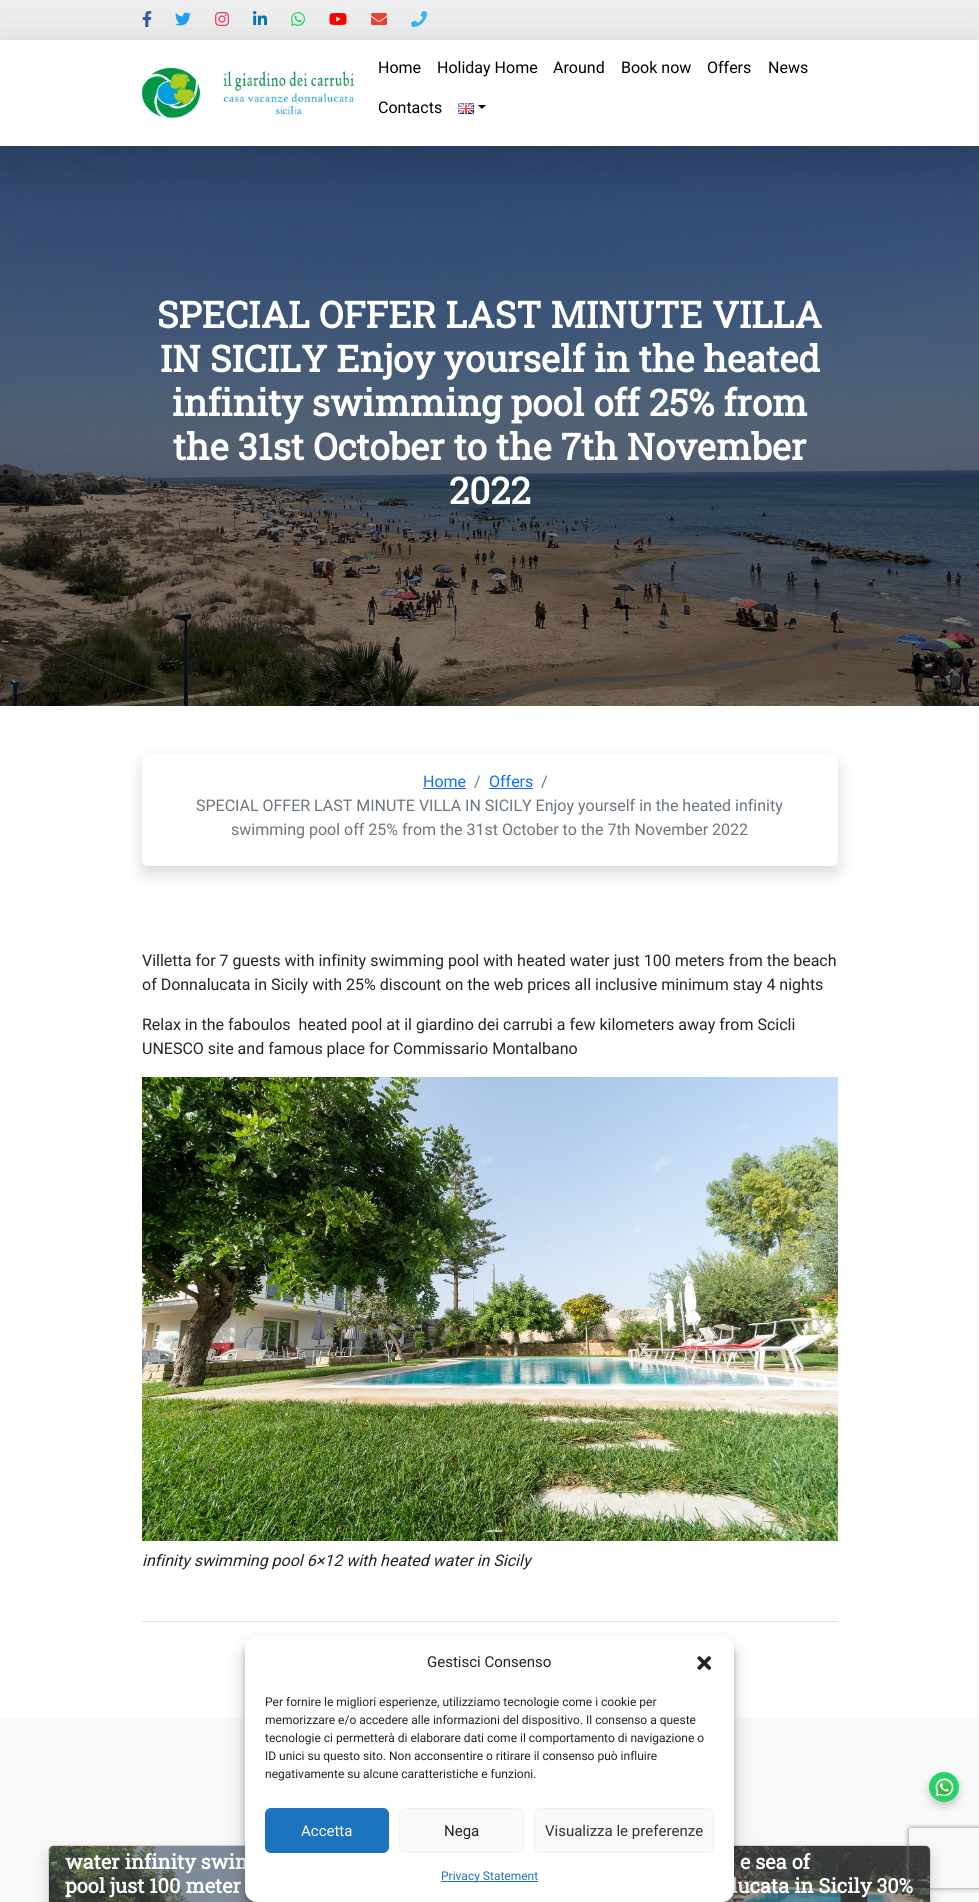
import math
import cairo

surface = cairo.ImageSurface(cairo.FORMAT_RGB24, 979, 1902)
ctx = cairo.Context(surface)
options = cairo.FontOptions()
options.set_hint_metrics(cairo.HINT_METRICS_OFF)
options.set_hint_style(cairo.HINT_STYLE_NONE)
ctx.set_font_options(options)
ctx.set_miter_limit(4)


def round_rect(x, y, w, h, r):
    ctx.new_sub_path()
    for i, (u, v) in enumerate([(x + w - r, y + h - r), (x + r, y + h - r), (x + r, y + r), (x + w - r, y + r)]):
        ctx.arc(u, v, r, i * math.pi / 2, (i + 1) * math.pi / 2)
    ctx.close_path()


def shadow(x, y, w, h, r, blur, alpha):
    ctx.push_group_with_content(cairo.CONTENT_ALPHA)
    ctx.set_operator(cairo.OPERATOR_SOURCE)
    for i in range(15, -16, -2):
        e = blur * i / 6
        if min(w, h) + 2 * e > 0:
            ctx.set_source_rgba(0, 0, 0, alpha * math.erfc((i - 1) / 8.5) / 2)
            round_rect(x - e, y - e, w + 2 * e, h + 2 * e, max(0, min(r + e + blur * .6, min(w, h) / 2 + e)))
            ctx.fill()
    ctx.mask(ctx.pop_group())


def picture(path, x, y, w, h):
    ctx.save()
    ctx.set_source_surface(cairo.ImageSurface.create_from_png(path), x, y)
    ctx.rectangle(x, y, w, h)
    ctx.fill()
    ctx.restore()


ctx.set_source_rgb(1, 1, 1)
ctx.paint()
ctx.set_source_rgb(0.933, 0.933, 0.933)
ctx.rectangle(0, 0, 979, 40)
ctx.fill()
picture("img1.png", 142, 11, 10, 16)
picture("img2.png", 175, 12, 16, 14)
picture("img3.png", 215, 12, 15, 14)
picture("img4.png", 253, 11, 14, 14)
picture("img5.png", 291, 12, 14, 14)
picture("img6.png", 329, 13, 18, 12)
picture("img7.png", 371, 13, 16, 12)
picture("img8.png", 411, 11, 16, 16)
picture("img11.png", 0, 146, 979, 560)
ctx.save()
ctx.set_fill_rule(cairo.FILL_RULE_EVEN_ODD)
ctx.new_path()
ctx.move_to(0, 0)
ctx.line_to(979, 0)
ctx.line_to(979, 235)
ctx.line_to(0, 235)
ctx.close_path()
ctx.move_to(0, 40)
ctx.line_to(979, 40)
ctx.line_to(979, 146)
ctx.line_to(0, 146)
ctx.close_path()
ctx.clip()
ctx.set_source_rgb(0, 0, 0)
shadow(0, 56, 979, 106, 0, 24, 0.18)
ctx.restore()
picture("img9.png", 142, 68, 212, 50)
ctx.select_font_face("Roboto")
ctx.set_font_size(16)
ctx.set_source_rgb(0, 0, 0)
ctx.move_to(378, 73)
ctx.show_text("Home")
ctx.move_to(437, 73)
ctx.show_text("Holiday Home")
ctx.move_to(553, 73)
ctx.show_text("Around")
ctx.move_to(621, 73)
ctx.show_text("Book now")
ctx.move_to(707, 73)
ctx.show_text("Offers")
ctx.move_to(768, 73)
ctx.show_text("News")
ctx.move_to(378, 113)
ctx.show_text("Contacts")
picture("img10.png", 458, 103, 16, 11)
ctx.new_path()
ctx.move_to(478, 105)
ctx.line_to(486, 105)
ctx.line_to(482, 109)
ctx.close_path()
ctx.fill()
ctx.select_font_face("Roboto Slab", cairo.FONT_SLANT_NORMAL, cairo.FONT_WEIGHT_BOLD)
ctx.set_font_size(36.7)
ctx.set_source_rgb(1, 1, 1)
ctx.move_to(157, 328)
ctx.show_text("SPECIAL OFFER LAST MINUTE VILLA")
ctx.move_to(160, 372)
ctx.show_text("IN SICILY Enjoy yourself in the heated")
ctx.move_to(172, 416)
ctx.show_text("infinity swimming pool off 25% from")
ctx.move_to(173, 460)
ctx.show_text("the 31st October to the 7th November")
ctx.move_to(449, 504)
ctx.show_text("2022")
ctx.set_source_rgb(0, 0, 0)
shadow(142, 762, 696, 112, 6, 8, 0.15)
ctx.set_source_rgb(1, 1, 1)
round_rect(142, 754, 696, 112, 6)
ctx.fill()
ctx.select_font_face("Roboto")
ctx.set_font_size(16)
ctx.set_source_rgb(0.051, 0.431, 0.992)
ctx.move_to(423, 787)
ctx.show_text("Home")
ctx.rectangle(423, 788, 43, 1)
ctx.fill()
ctx.set_source_rgb(0.424, 0.459, 0.49)
ctx.move_to(474, 787)
ctx.show_text("/")
ctx.set_source_rgb(0.051, 0.431, 0.992)
ctx.move_to(489, 787)
ctx.show_text("Offers")
ctx.rectangle(489, 788, 44, 1)
ctx.fill()
ctx.set_source_rgb(0.424, 0.459, 0.49)
ctx.move_to(541, 787)
ctx.show_text("/")
ctx.move_to(196, 811)
ctx.show_text("SPECIAL OFFER LAST MINUTE VILLA IN SICILY Enjoy yourself in the heated infinity")
ctx.move_to(231, 835)
ctx.show_text("swimming pool off 25% from the 31st October to the 7th November 2022")
ctx.set_source_rgb(0.129, 0.145, 0.161)
ctx.move_to(142, 966)
ctx.show_text("Villetta for 7 guests with infinity swimming pool with heated water just 100 meters from the beach")
ctx.move_to(142, 990)
ctx.show_text("of Donnalucata in Sicily with 25% discount on the web prices all inclusive minimum stay 4 nights")
ctx.move_to(142, 1030)
ctx.show_text("Relax in the faboulos  heated pool at il giardino dei carrubi a few kilometers away from Scicli")
ctx.move_to(142, 1054)
ctx.show_text("UNESCO site and famous place for Commissario Montalbano")
picture("img12.png", 142, 1077, 696, 464)
ctx.select_font_face("Roboto", cairo.FONT_SLANT_ITALIC)
ctx.move_to(142, 1566)
ctx.show_text("infinity swimming pool 6×12 with heated water in Sicily")
ctx.set_source_rgb(0.871, 0.886, 0.902)
ctx.rectangle(142, 1621, 696, 1)
ctx.fill()
ctx.set_source_rgb(0.973, 0.973, 0.973)
ctx.rectangle(0, 1718, 979, 184)
ctx.fill()
ctx.set_source_rgb(0, 0, 0)
shadow(929, 1776, 30, 30, 15, 4, 0.2)
ctx.set_source_rgb(0.145, 0.827, 0.4)
ctx.arc(944, 1787, 15, 0, 2 * math.pi)
ctx.fill()
picture("img13.png", 935, 1778, 19, 19)
ctx.set_source_rgb(0, 0, 0)
shadow(48, 1853, 278, 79, 6, 8, 0.15)
round_rect(48.5, 1845.5, 277, 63, 5.5)
ctx.set_source_rgb(0.824, 0.824, 0.824)
ctx.set_line_width(1)
ctx.stroke()
picture("img14.png", 49, 1846, 208, 56)
ctx.set_source_rgba(0.129, 0.145, 0.161, 0.5)
round_rect(49, 1846, 276, 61, 5)
ctx.fill()
gradient = cairo.LinearGradient(187, 1846, 187, 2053)
gradient.add_color_stop_rgba(0, 1, 1, 1, 0.15)
gradient.add_color_stop_rgba(1, 1, 1, 1, 0)
ctx.set_source(gradient)
round_rect(49, 1846, 276, 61, 5)
ctx.fill()
ctx.select_font_face("Roboto Slab", cairo.FONT_SLANT_NORMAL, cairo.FONT_WEIGHT_BOLD)
ctx.set_font_size(20)
ctx.set_source_rgb(1, 1, 1)
ctx.move_to(65, 1869)
ctx.show_text("water infinity swim")
ctx.move_to(65, 1893)
ctx.show_text("pool just 100 meter")
ctx.set_source_rgb(0, 0, 0)
shadow(653, 1853, 278, 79, 6, 8, 0.15)
round_rect(653.5, 1845.5, 277, 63, 5.5)
ctx.set_source_rgb(0.824, 0.824, 0.824)
ctx.stroke()
picture("img15.png", 722, 1846, 208, 56)
ctx.set_source_rgba(0.129, 0.145, 0.161, 0.5)
round_rect(654, 1846, 276, 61, 5)
ctx.fill()
gradient = cairo.LinearGradient(792, 1846, 792, 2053)
gradient.add_color_stop_rgba(0, 1, 1, 1, 0.15)
gradient.add_color_stop_rgba(1, 1, 1, 1, 0)
ctx.set_source(gradient)
round_rect(654, 1846, 276, 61, 5)
ctx.fill()
ctx.set_source_rgb(1, 1, 1)
ctx.move_to(740, 1869)
ctx.show_text("e sea of")
ctx.move_to(731, 1893)
ctx.show_text("lucata in Sicily 30%")
ctx.set_source_rgb(0, 0, 0)
shadow(245, 1642, 489, 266, 12, 3, 0.23)
shadow(245, 1646, 489, 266, 12, 10, 0.19)
ctx.set_source_rgb(1, 1, 1)
round_rect(245, 1636, 489, 266, 12)
ctx.fill()
ctx.select_font_face("Roboto")
ctx.set_font_size(15)
ctx.set_source_rgb(0.133, 0.133, 0.133)
ctx.move_to(427, 1667)
ctx.show_text("Gestisci Consenso")
picture("img16.png", 697, 1656, 15, 14)
ctx.set_font_size(12)
ctx.move_to(265, 1706)
ctx.show_text("Per fornire le migliori esperienze, utilizziamo tecnologie come i cookie per")
ctx.move_to(265, 1724)
ctx.show_text("memorizzare e/o accedere alle informazioni del dispositivo. Il consenso a queste")
ctx.move_to(265, 1742)
ctx.show_text("tecnologie ci permetterà di elaborare dati come il comportamento di navigazione o")
ctx.move_to(265, 1760)
ctx.show_text("ID unici su questo sito. Non acconsentire o ritirare il consenso può influire")
ctx.move_to(265, 1778)
ctx.show_text("negativamente su alcune caratteristiche e funzioni.")
ctx.set_source_rgb(0.118, 0.451, 0.745)
round_rect(265.5, 1808.5, 123, 44, 5.5)
ctx.fill_preserve()
ctx.stroke()
ctx.set_font_size(15)
ctx.set_source_rgb(1, 1, 1)
ctx.move_to(301, 1836)
ctx.show_text("Accetta")
ctx.set_source_rgb(0.976, 0.976, 0.976)
round_rect(399.5, 1808.5, 124, 44, 5.5)
ctx.fill_preserve()
ctx.set_source_rgb(0.949, 0.949, 0.949)
ctx.stroke()
ctx.set_source_rgb(0.133, 0.133, 0.133)
ctx.move_to(444, 1836)
ctx.show_text("Nega")
ctx.set_source_rgb(0.976, 0.976, 0.976)
round_rect(534.5, 1808.5, 179, 44, 5.5)
ctx.fill_preserve()
ctx.set_source_rgb(0.949, 0.949, 0.949)
ctx.stroke()
ctx.set_source_rgb(0.2, 0.2, 0.2)
ctx.move_to(545, 1836)
ctx.show_text("Visualizza le preferenze")
ctx.set_source_rgb(0.118, 0.451, 0.745)
ctx.rectangle(441, 1881, 97, 1)
ctx.fill()
ctx.set_font_size(12)
ctx.move_to(441, 1880)
ctx.show_text("Privacy Statement")
ctx.save()
ctx.set_fill_rule(cairo.FILL_RULE_EVEN_ODD)
ctx.new_path()
ctx.move_to(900, 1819)
ctx.line_to(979, 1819)
ctx.line_to(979, 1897)
ctx.line_to(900, 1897)
ctx.close_path()
ctx.move_to(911, 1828)
ctx.line_to(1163, 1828)
ctx.curve_to(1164, 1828, 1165, 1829, 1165, 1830)
ctx.line_to(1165, 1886)
ctx.curve_to(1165, 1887, 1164, 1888, 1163, 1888)
ctx.line_to(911, 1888)
ctx.curve_to(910, 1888, 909, 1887, 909, 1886)
ctx.line_to(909, 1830)
ctx.curve_to(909, 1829, 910, 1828, 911, 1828)
ctx.close_path()
ctx.clip()
ctx.set_source_rgb(0.502, 0.502, 0.502)
shadow(909, 1828, 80, 60, 2, 2.5, 1)
ctx.restore()
surface.write_to_png("page.png")
